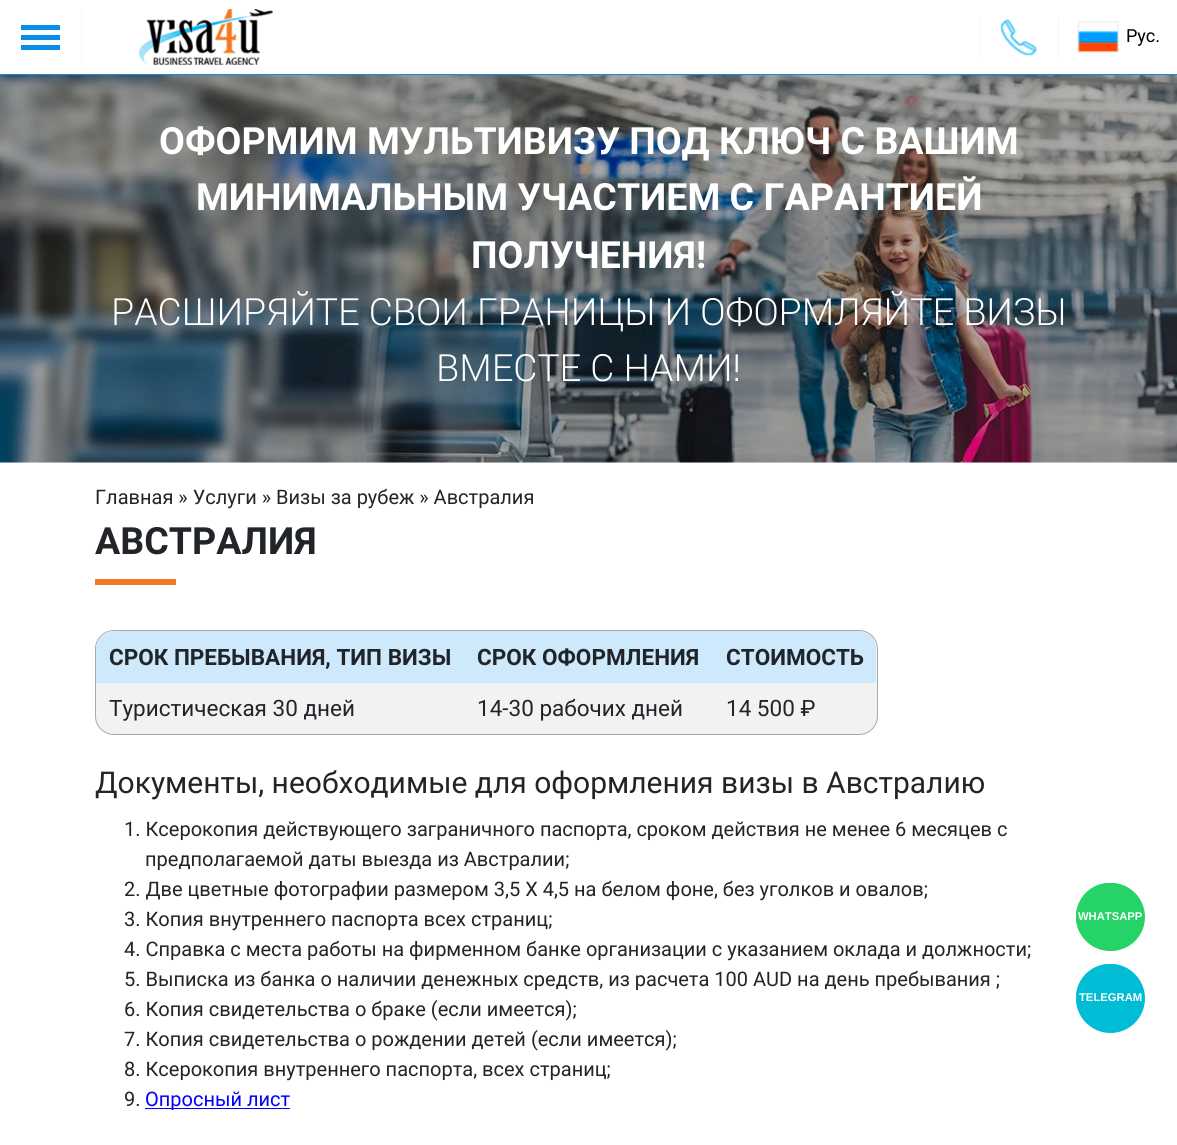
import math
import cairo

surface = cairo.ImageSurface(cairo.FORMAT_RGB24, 1177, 1145)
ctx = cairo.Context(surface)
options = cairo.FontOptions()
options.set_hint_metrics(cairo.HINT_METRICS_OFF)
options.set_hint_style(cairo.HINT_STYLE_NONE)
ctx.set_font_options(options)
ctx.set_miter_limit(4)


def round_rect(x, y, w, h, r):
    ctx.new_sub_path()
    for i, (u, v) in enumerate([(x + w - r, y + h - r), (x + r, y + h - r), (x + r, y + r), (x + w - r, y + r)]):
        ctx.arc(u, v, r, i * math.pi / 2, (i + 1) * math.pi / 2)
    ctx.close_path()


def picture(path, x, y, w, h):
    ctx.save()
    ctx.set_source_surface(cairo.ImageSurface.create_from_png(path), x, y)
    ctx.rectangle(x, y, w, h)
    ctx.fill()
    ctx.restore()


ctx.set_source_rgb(0.984, 0.98, 0.98)
ctx.paint()
ctx.set_source_rgb(1, 1, 1)
ctx.rectangle(0, 0, 1177, 74)
ctx.fill()
ctx.set_source_rgb(0.024, 0.557, 0.914)
ctx.rectangle(0, 74, 1177, 1)
ctx.fill()
ctx.rectangle(21, 35, 39, 5)
ctx.fill()
ctx.rectangle(21, 25, 39, 5)
ctx.fill()
ctx.rectangle(21, 45, 39, 5)
ctx.fill()
ctx.set_source_rgb(0.961, 0.961, 0.961)
ctx.rectangle(81, 8, 1, 58)
ctx.fill()
picture("img1.png", 138, 9, 135, 56)
ctx.rectangle(979, 18, 1, 40)
ctx.fill()
picture("img2.png", 1000, 19, 37, 37)
ctx.rectangle(1058, 18, 1, 40)
ctx.fill()
picture("img3.png", 1077, 21, 42, 32)
ctx.select_font_face("Roboto")
ctx.set_font_size(18)
ctx.set_source_rgb(0, 0, 0)
ctx.move_to(1126, 42)
ctx.show_text("Рус.")
picture("img4.png", 0, 75, 1177, 388)
ctx.select_font_face("Roboto", cairo.FONT_SLANT_NORMAL, cairo.FONT_WEIGHT_BOLD)
ctx.set_font_size(37.5)
ctx.set_source_rgb(1, 1, 1)
ctx.move_to(159, 154)
ctx.show_text("ОФОРМИМ МУЛЬТИВИЗУ ПОД КЛЮЧ С ВАШИМ")
ctx.move_to(196, 210)
ctx.show_text("МИНИМАЛЬНЫМ УЧАСТИЕМ С ГАРАНТИЕЙ")
ctx.move_to(471, 268)
ctx.show_text("ПОЛУЧЕНИЯ!")
ctx.select_font_face("Roboto Light")
ctx.move_to(111, 325)
ctx.show_text("РАСШИРЯЙТЕ СВОИ ГРАНИЦЫ И ОФОРМЛЯЙТЕ ВИЗЫ")
ctx.move_to(436, 381)
ctx.show_text("ВМЕСТЕ С НАМИ!")
ctx.rectangle(0, 463, 1177, 682)
ctx.fill()
ctx.select_font_face("Roboto")
ctx.set_font_size(20)
ctx.set_source_rgb(0.129, 0.145, 0.161)
ctx.move_to(95, 504)
ctx.show_text("Главная » Услуги » Визы за рубеж » Австралия")
ctx.select_font_face("Roboto", cairo.FONT_SLANT_NORMAL, cairo.FONT_WEIGHT_BOLD)
ctx.set_font_size(37.5)
ctx.move_to(95, 554)
ctx.show_text("АВСТРАЛИЯ")
ctx.set_source_rgb(0.957, 0.475, 0.125)
ctx.rectangle(95, 579, 81, 6)
ctx.fill()
ctx.set_source_rgb(0.949, 0.949, 0.949)
round_rect(95.5, 630.5, 782, 104, 18.5)
ctx.fill_preserve()
ctx.set_source_rgb(0.667, 0.667, 0.667)
ctx.set_line_width(1)
ctx.stroke()
ctx.set_source_rgb(0.808, 0.914, 0.984)
ctx.new_path()
ctx.move_to(114, 631)
ctx.line_to(464, 631)
ctx.line_to(464, 683)
ctx.line_to(96, 683)
ctx.line_to(96, 649)
ctx.curve_to(96, 639, 104, 631, 114, 631)
ctx.close_path()
ctx.fill()
ctx.set_font_size(22.5)
ctx.set_source_rgb(0.129, 0.145, 0.161)
ctx.move_to(109, 665)
ctx.show_text("СРОК ПРЕБЫВАНИЯ, ТИП ВИЗЫ")
ctx.set_source_rgb(0.808, 0.914, 0.984)
ctx.rectangle(464, 631, 249, 52)
ctx.fill()
ctx.set_source_rgb(0.129, 0.145, 0.161)
ctx.move_to(477, 665)
ctx.show_text("СРОК ОФОРМЛЕНИЯ")
ctx.set_source_rgb(0.808, 0.914, 0.984)
ctx.new_path()
ctx.move_to(713, 631)
ctx.line_to(858, 631)
ctx.curve_to(868, 631, 876, 639, 876, 649)
ctx.line_to(876, 683)
ctx.line_to(713, 683)
ctx.close_path()
ctx.fill()
ctx.set_source_rgb(0.129, 0.145, 0.161)
ctx.move_to(726, 665)
ctx.show_text("СТОИМОСТЬ")
ctx.select_font_face("Roboto")
ctx.move_to(109, 716)
ctx.show_text("Туристическая 30 дней")
ctx.move_to(477, 716)
ctx.show_text("14-30 рабочих дней")
ctx.move_to(726, 716)
ctx.show_text("14 500 ₽")
ctx.set_font_size(30)
ctx.move_to(95, 793)
ctx.show_text("Документы, необходимые для оформления визы в Австралию")
ctx.set_font_size(20)
ctx.move_to(124, 836)
ctx.show_text("1. Ксерокопия действующего заграничного паспорта, сроком действия не менее 6 месяцев с")
ctx.move_to(145, 866)
ctx.show_text("предполагаемой даты выезда из Австралии;")
ctx.move_to(124, 896)
ctx.show_text("2. Две цветные фотографии размером 3,5 Х 4,5 на белом фоне, без уголков и овалов;")
ctx.move_to(124, 926)
ctx.show_text("3. Копия внутреннего паспорта всех страниц;")
ctx.move_to(124, 956)
ctx.show_text("4. Справка с места работы на фирменном банке организации с указанием оклада и должности;")
ctx.move_to(124, 986)
ctx.show_text("5. Выписка из банка о наличии денежных средств, из расчета 100 AUD на день пребывания ;")
ctx.move_to(124, 1016)
ctx.show_text("6. Копия свидетельства о браке (если имеется);")
ctx.move_to(124, 1046)
ctx.show_text("7. Копия свидетельства о рождении детей (если имеется);")
ctx.move_to(124, 1076)
ctx.show_text("8. Ксерокопия внутреннего паспорта, всех страниц;")
ctx.move_to(124, 1106)
ctx.show_text("9.")
ctx.set_source_rgb(0, 0, 1)
ctx.rectangle(145, 1108, 145, 1)
ctx.fill()
ctx.move_to(145, 1106)
ctx.show_text("Опросный лист")
ctx.set_source_rgb(0.145, 0.827, 0.4)
round_rect(1076, 883, 69, 68, 34)
ctx.fill()
round_rect(1076.5, 883.5, 67, 66, 33)
ctx.stroke()
ctx.select_font_face("Liberation Sans", cairo.FONT_SLANT_NORMAL, cairo.FONT_WEIGHT_BOLD)
ctx.set_font_size(11.25)
ctx.set_source_rgb(1, 1, 1)
ctx.move_to(1078, 920)
ctx.show_text("WHATSAPP")
ctx.set_source_rgb(0, 0.737, 0.831)
ctx.new_path()
ctx.arc(1110.5, 998.5, 34.5, 0, 2 * math.pi)
ctx.fill()
round_rect(1076.5, 964.5, 67, 66, 33)
ctx.stroke()
ctx.set_source_rgb(1, 1, 1)
ctx.move_to(1079, 1001)
ctx.show_text("TELEGRAM")
surface.write_to_png("page.png")
